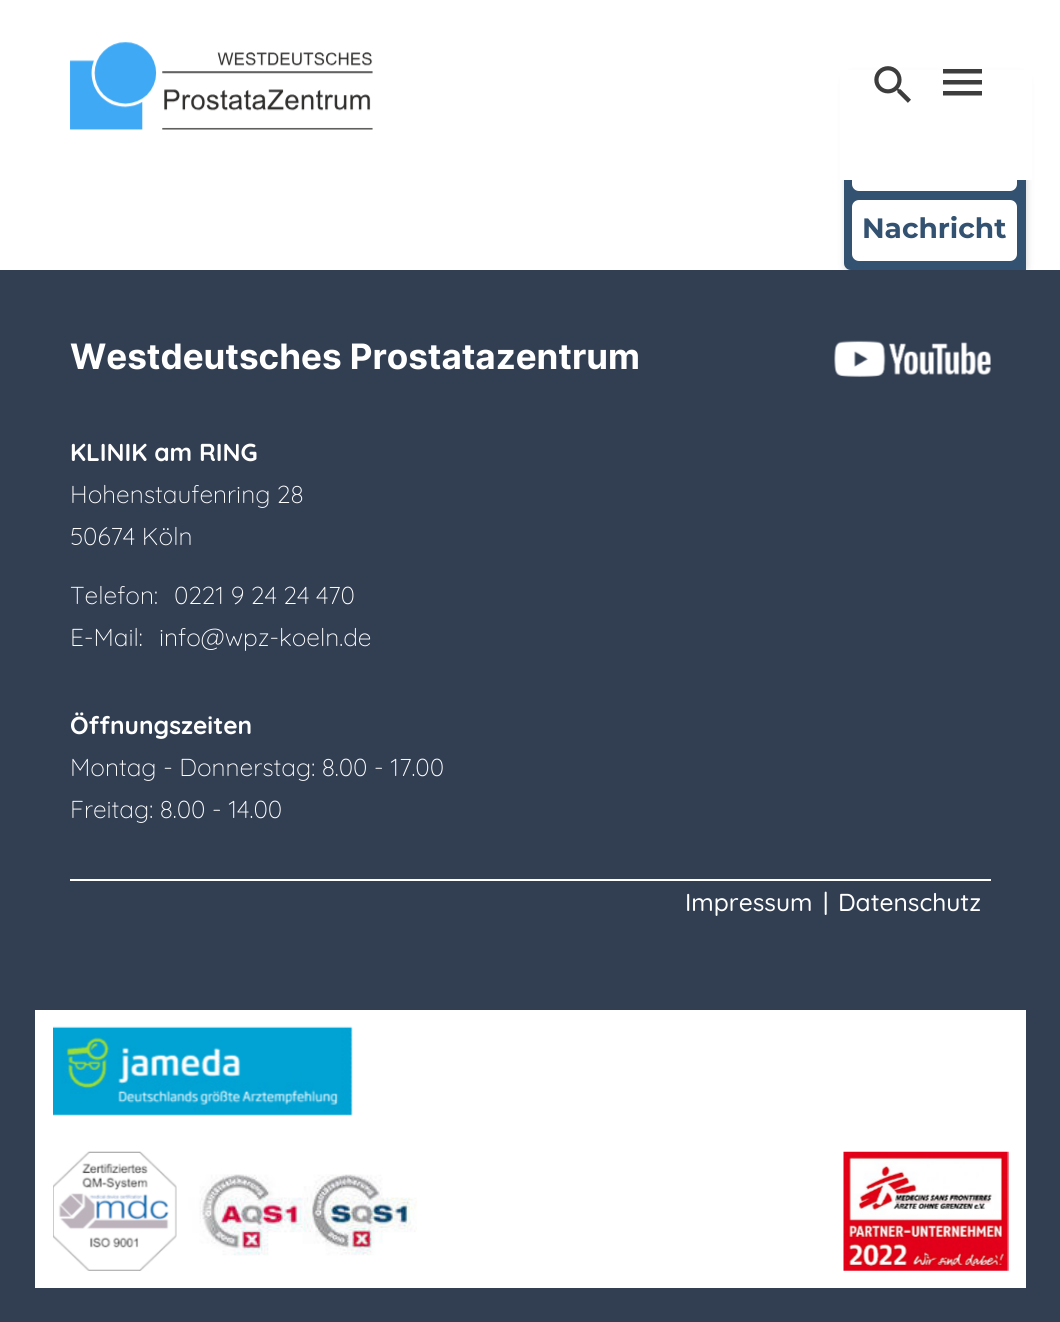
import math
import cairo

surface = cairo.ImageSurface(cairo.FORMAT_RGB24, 1060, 1322)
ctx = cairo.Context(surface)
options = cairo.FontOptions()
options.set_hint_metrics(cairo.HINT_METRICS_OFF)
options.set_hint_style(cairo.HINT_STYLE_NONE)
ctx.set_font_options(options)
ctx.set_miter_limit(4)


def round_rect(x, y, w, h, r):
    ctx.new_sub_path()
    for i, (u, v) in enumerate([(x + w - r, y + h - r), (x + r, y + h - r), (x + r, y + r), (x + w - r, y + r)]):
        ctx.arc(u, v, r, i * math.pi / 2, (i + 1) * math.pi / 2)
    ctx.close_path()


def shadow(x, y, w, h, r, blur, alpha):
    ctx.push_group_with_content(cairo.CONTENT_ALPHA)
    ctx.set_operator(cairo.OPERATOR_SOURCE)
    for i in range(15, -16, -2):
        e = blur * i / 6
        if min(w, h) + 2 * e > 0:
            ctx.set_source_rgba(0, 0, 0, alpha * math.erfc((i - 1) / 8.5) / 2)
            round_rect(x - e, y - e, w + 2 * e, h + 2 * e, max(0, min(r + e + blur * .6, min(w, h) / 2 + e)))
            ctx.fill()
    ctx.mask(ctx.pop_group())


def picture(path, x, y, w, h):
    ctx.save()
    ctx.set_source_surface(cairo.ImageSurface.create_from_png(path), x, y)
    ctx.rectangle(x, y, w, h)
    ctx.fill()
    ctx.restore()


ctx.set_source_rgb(1, 1, 1)
ctx.paint()
ctx.set_source_rgb(0.2, 0.2, 0.2)
shadow(845, 75, 182, 198, 7, 3.5, 0.2)
ctx.set_source_rgb(0.2, 0.318, 0.439)
ctx.new_path()
ctx.move_to(851, 72)
ctx.line_to(1026, 72)
ctx.line_to(1026, 270)
ctx.line_to(851, 270)
ctx.curve_to(847, 270, 844, 267, 844, 263)
ctx.line_to(844, 79)
ctx.curve_to(844, 75, 847, 72, 851, 72)
ctx.close_path()
ctx.fill()
ctx.set_source_rgb(1, 1, 1)
round_rect(852, 131, 165, 60, 7)
ctx.fill()
ctx.rectangle(840, 70, 192, 110)
ctx.fill()
picture("img1.png", 70, 42, 303, 88)
picture("img2.png", 874, 66, 37, 37)
ctx.set_source_rgb(0.239, 0.239, 0.239)
ctx.new_path()
ctx.move_to(943, 95.5)
ctx.line_to(982, 95.5)
ctx.line_to(982, 91)
ctx.line_to(943, 91)
ctx.close_path()
ctx.move_to(943, 84.5)
ctx.line_to(982, 84.5)
ctx.line_to(982, 80)
ctx.line_to(943, 80)
ctx.close_path()
ctx.move_to(943, 69)
ctx.line_to(943, 73.5)
ctx.line_to(982, 73.5)
ctx.line_to(982, 69)
ctx.close_path()
ctx.fill()
ctx.set_source_rgb(1, 1, 1)
round_rect(852, 200, 165, 61, 7)
ctx.fill()
ctx.select_font_face("Montserrat", cairo.FONT_SLANT_NORMAL, cairo.FONT_WEIGHT_BOLD)
ctx.set_font_size(28)
ctx.set_source_rgb(0.2, 0.318, 0.439)
ctx.move_to(862, 238)
ctx.show_text("Nachricht")
ctx.set_source_rgb(0.196, 0.247, 0.325)
ctx.rectangle(0, 270, 1060, 1052)
ctx.fill()
ctx.select_font_face("Inter", cairo.FONT_SLANT_NORMAL, cairo.FONT_WEIGHT_BOLD)
ctx.set_font_size(35)
ctx.set_source_rgb(1, 1, 1)
ctx.move_to(70, 369)
ctx.show_text("Westdeutsches Prostatazentrum")
picture("img3.png", 834, 340, 157, 37)
ctx.select_font_face("Quicksand", cairo.FONT_SLANT_NORMAL, cairo.FONT_WEIGHT_BOLD)
ctx.set_font_size(24.5)
ctx.move_to(70, 461)
ctx.show_text("KLINIK am RING")
ctx.select_font_face("Quicksand Light")
ctx.move_to(70, 503)
ctx.show_text("Hohenstaufenring 28")
ctx.move_to(70, 545)
ctx.show_text("50674 Köln")
ctx.move_to(70, 604)
ctx.show_text("Telefon:")
ctx.move_to(174, 604)
ctx.show_text("0221 9 24 24 470")
ctx.move_to(70, 646)
ctx.show_text("E-Mail:")
ctx.move_to(159, 646)
ctx.show_text("info@wpz-koeln.de")
ctx.select_font_face("Quicksand", cairo.FONT_SLANT_NORMAL, cairo.FONT_WEIGHT_BOLD)
ctx.move_to(70, 734)
ctx.show_text("Öffnungszeiten")
ctx.select_font_face("Quicksand Light")
ctx.move_to(70, 776)
ctx.show_text("Montag - Donnerstag: 8.00 - 17.00")
ctx.move_to(70, 818)
ctx.show_text("Freitag: 8.00 - 14.00")
ctx.rectangle(70, 879, 921, 2)
ctx.fill()
ctx.select_font_face("Quicksand Medium")
ctx.move_to(685, 911)
ctx.show_text("Impressum")
ctx.move_to(823, 911)
ctx.show_text("|")
ctx.move_to(838, 911)
ctx.show_text("Datenschutz")
ctx.rectangle(35, 1010, 991, 278)
ctx.fill()
picture("img4.png", 53, 1026, 300, 90)
picture("img5.png", 53, 1151, 125, 120)
picture("img6.png", 176, 1174, 241, 82)
picture("img7.png", 843, 1151, 166, 120)
surface.write_to_png("page.png")
